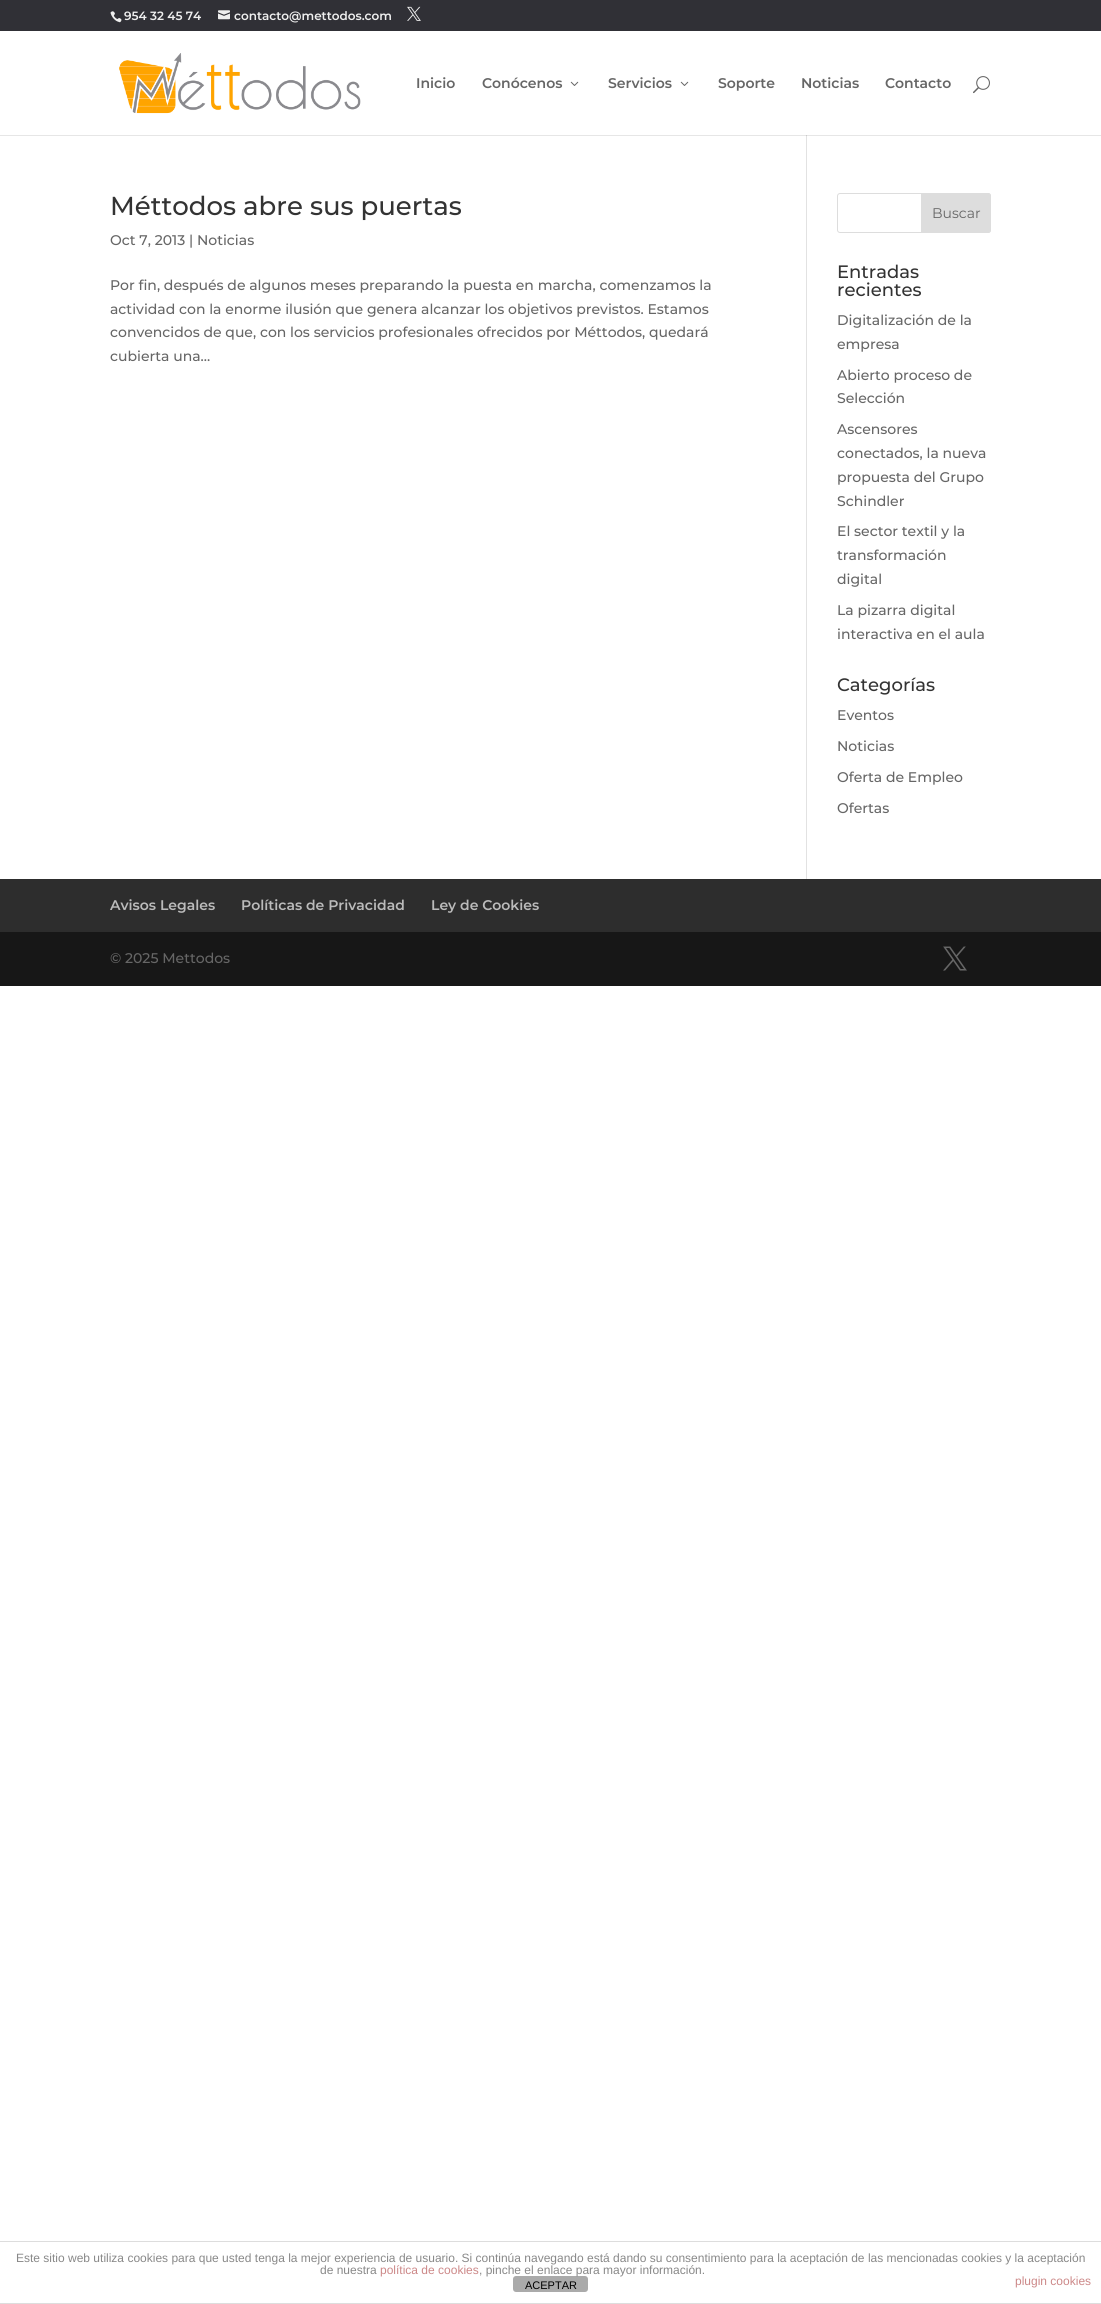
import math
import cairo

surface = cairo.ImageSurface(cairo.FORMAT_RGB24, 1101, 2304)
ctx = cairo.Context(surface)
options = cairo.FontOptions()
options.set_hint_metrics(cairo.HINT_METRICS_OFF)
options.set_hint_style(cairo.HINT_STYLE_NONE)
ctx.set_font_options(options)
ctx.set_miter_limit(4)


def round_rect(x, y, w, h, r):
    ctx.new_sub_path()
    for i, (u, v) in enumerate([(x + w - r, y + h - r), (x + r, y + h - r), (x + r, y + r), (x + w - r, y + r)]):
        ctx.arc(u, v, r, i * math.pi / 2, (i + 1) * math.pi / 2)
    ctx.close_path()


def picture(path, x, y, w, h):
    ctx.save()
    ctx.set_source_surface(cairo.ImageSurface.create_from_png(path), x, y)
    ctx.rectangle(x, y, w, h)
    ctx.fill()
    ctx.restore()


ctx.set_source_rgb(1, 1, 1)
ctx.paint()
ctx.set_source_rgb(0.902, 0.902, 0.902)
ctx.rectangle(0, 135, 1101, 1)
ctx.fill()
ctx.set_source_rgb(0.188, 0.188, 0.212)
ctx.rectangle(0, 0, 1101, 31)
ctx.fill()
picture("img1.png", 110, 11, 12, 12)
ctx.select_font_face("Montserrat SemiBold")
ctx.set_font_size(12)
ctx.set_source_rgb(0.937, 0.937, 0.937)
ctx.move_to(124, 20)
ctx.show_text("954 32 45 74")
picture("img2.png", 218, 10, 12, 10)
ctx.move_to(234, 20)
ctx.show_text("contacto@mettodos.com")
picture("img3.png", 407, 6, 14, 15)
picture("img4.png", 119, 53, 242, 61)
ctx.set_font_size(14)
ctx.set_source_rgb(0.4, 0.4, 0.4)
ctx.move_to(416, 88)
ctx.show_text("Inicio")
ctx.move_to(482, 88)
ctx.show_text("Conócenos")
picture("img5.png", 570, 81, 9, 5)
ctx.move_to(608, 88)
ctx.show_text("Servicios")
picture("img5.png", 680, 81, 9, 5)
ctx.move_to(718, 88)
ctx.show_text("Soporte")
ctx.move_to(801, 88)
ctx.show_text("Noticias")
ctx.move_to(885, 88)
ctx.show_text("Contacto")
picture("img6.png", 973, 76, 17, 18)
ctx.set_source_rgb(0.886, 0.886, 0.886)
ctx.rectangle(806, 135, 1, 744)
ctx.fill()
ctx.set_source_rgb(0.796, 0.796, 0.796)
ctx.rectangle(806, 135, 1, 1)
ctx.fill()
ctx.select_font_face("Montserrat Medium")
ctx.set_font_size(26)
ctx.set_source_rgb(0.2, 0.2, 0.2)
ctx.move_to(110, 215)
ctx.show_text("Méttodos abre sus puertas")
ctx.set_font_size(14)
ctx.set_source_rgb(0.4, 0.4, 0.4)
ctx.move_to(110, 245)
ctx.show_text("Oct 7, 2013 | Noticias")
ctx.move_to(110, 290)
ctx.show_text("Por fin, después de algunos meses preparando la puesta en marcha, comenzamos la")
ctx.move_to(110, 314)
ctx.show_text("actividad con la enorme ilusión que genera alcanzar los objetivos previstos. Estamos")
ctx.move_to(110, 337)
ctx.show_text("convencidos de que, con los servicios profesionales ofrecidos por Méttodos, quedará")
ctx.move_to(110, 361)
ctx.show_text("cubierta una...")
round_rect(837.5, 193.5, 153, 39, 2.5)
ctx.set_source_rgb(0.867, 0.867, 0.867)
ctx.set_line_width(1)
ctx.stroke()
ctx.new_path()
ctx.move_to(921.5, 193.5)
ctx.line_to(988, 193.5)
ctx.curve_to(989.5, 193.5, 990.5, 194.5, 990.5, 196)
ctx.line_to(990.5, 230)
ctx.curve_to(990.5, 231.5, 989.5, 232.5, 988, 232.5)
ctx.line_to(921.5, 232.5)
ctx.close_path()
ctx.fill_preserve()
ctx.stroke()
ctx.select_font_face("Montserrat")
ctx.set_source_rgb(0.4, 0.4, 0.4)
ctx.move_to(932, 218)
ctx.show_text("Buscar")
ctx.select_font_face("Montserrat Medium")
ctx.set_font_size(18)
ctx.set_source_rgb(0.2, 0.2, 0.2)
ctx.move_to(837, 278)
ctx.show_text("Entradas")
ctx.move_to(837, 296)
ctx.show_text("recientes")
ctx.set_font_size(14)
ctx.set_source_rgb(0.4, 0.4, 0.4)
ctx.move_to(837, 325)
ctx.show_text("Digitalización de la")
ctx.move_to(837, 349)
ctx.show_text("empresa")
ctx.move_to(837, 380)
ctx.show_text("Abierto proceso de")
ctx.move_to(837, 403)
ctx.show_text("Selección")
ctx.move_to(837, 434)
ctx.show_text("Ascensores")
ctx.move_to(837, 458)
ctx.show_text("conectados, la nueva")
ctx.move_to(837, 482)
ctx.show_text("propuesta del Grupo")
ctx.move_to(837, 506)
ctx.show_text("Schindler")
ctx.move_to(837, 536)
ctx.show_text("El sector textil y la")
ctx.move_to(837, 560)
ctx.show_text("transformación")
ctx.move_to(837, 584)
ctx.show_text("digital")
ctx.move_to(837, 615)
ctx.show_text("La pizarra digital")
ctx.move_to(837, 639)
ctx.show_text("interactiva en el aula")
ctx.set_font_size(18)
ctx.set_source_rgb(0.2, 0.2, 0.2)
ctx.move_to(837, 691)
ctx.show_text("Categorías")
ctx.set_font_size(14)
ctx.set_source_rgb(0.4, 0.4, 0.4)
ctx.move_to(837, 720)
ctx.show_text("Eventos")
ctx.move_to(837, 751)
ctx.show_text("Noticias")
ctx.move_to(837, 782)
ctx.show_text("Oferta de Empleo")
ctx.move_to(837, 813)
ctx.show_text("Ofertas")
ctx.set_source_rgb(0.176, 0.176, 0.176)
ctx.rectangle(0, 879, 1101, 53)
ctx.fill()
ctx.select_font_face("Montserrat SemiBold")
ctx.set_source_rgb(0.733, 0.733, 0.733)
ctx.move_to(110, 910)
ctx.show_text("Avisos Legales")
ctx.move_to(241, 910)
ctx.show_text("Políticas de Privacidad")
ctx.move_to(431, 910)
ctx.show_text("Ley de Cookies")
ctx.set_source_rgb(0.09, 0.09, 0.09)
ctx.rectangle(0, 932, 1101, 54)
ctx.fill()
ctx.select_font_face("Montserrat Medium")
ctx.set_source_rgb(0.4, 0.4, 0.4)
ctx.move_to(110, 963)
ctx.show_text("© 2025 Mettodos")
picture("img7.png", 943, 946, 24, 25)
ctx.set_source_rgb(0.867, 0.867, 0.867)
ctx.rectangle(0, 2241, 1101, 1)
ctx.fill()
ctx.rectangle(0, 2303, 1101, 1)
ctx.fill()
ctx.select_font_face("Liberation Sans")
ctx.set_font_size(12)
ctx.set_source_rgb(0.533, 0.533, 0.533)
ctx.move_to(16, 2262)
ctx.show_text("Este sitio web utiliza cookies para que usted tenga la mejor experiencia de usuario. Si continúa navegando está dando su consentimiento para la aceptación de las mencionadas cookies y la aceptación")
ctx.move_to(320, 2274)
ctx.show_text("de nuestra")
ctx.set_source_rgb(0.8, 0.533, 0.533)
ctx.move_to(380, 2274)
ctx.show_text("política de cookies")
ctx.set_source_rgb(0.667, 0.667, 0.667)
round_rect(513, 2276, 75, 16, 3)
ctx.fill()
ctx.set_source_rgb(0.533, 0.533, 0.533)
ctx.move_to(479, 2274)
ctx.show_text(", pinche el enlace para mayor información.")
ctx.set_source_rgb(0.8, 0.533, 0.533)
ctx.move_to(1015, 2285)
ctx.show_text("plugin cookies")
ctx.set_font_size(11)
ctx.set_source_rgb(0, 0, 0)
ctx.move_to(525, 2289)
ctx.show_text("ACEPTAR")
surface.write_to_png("page.png")
